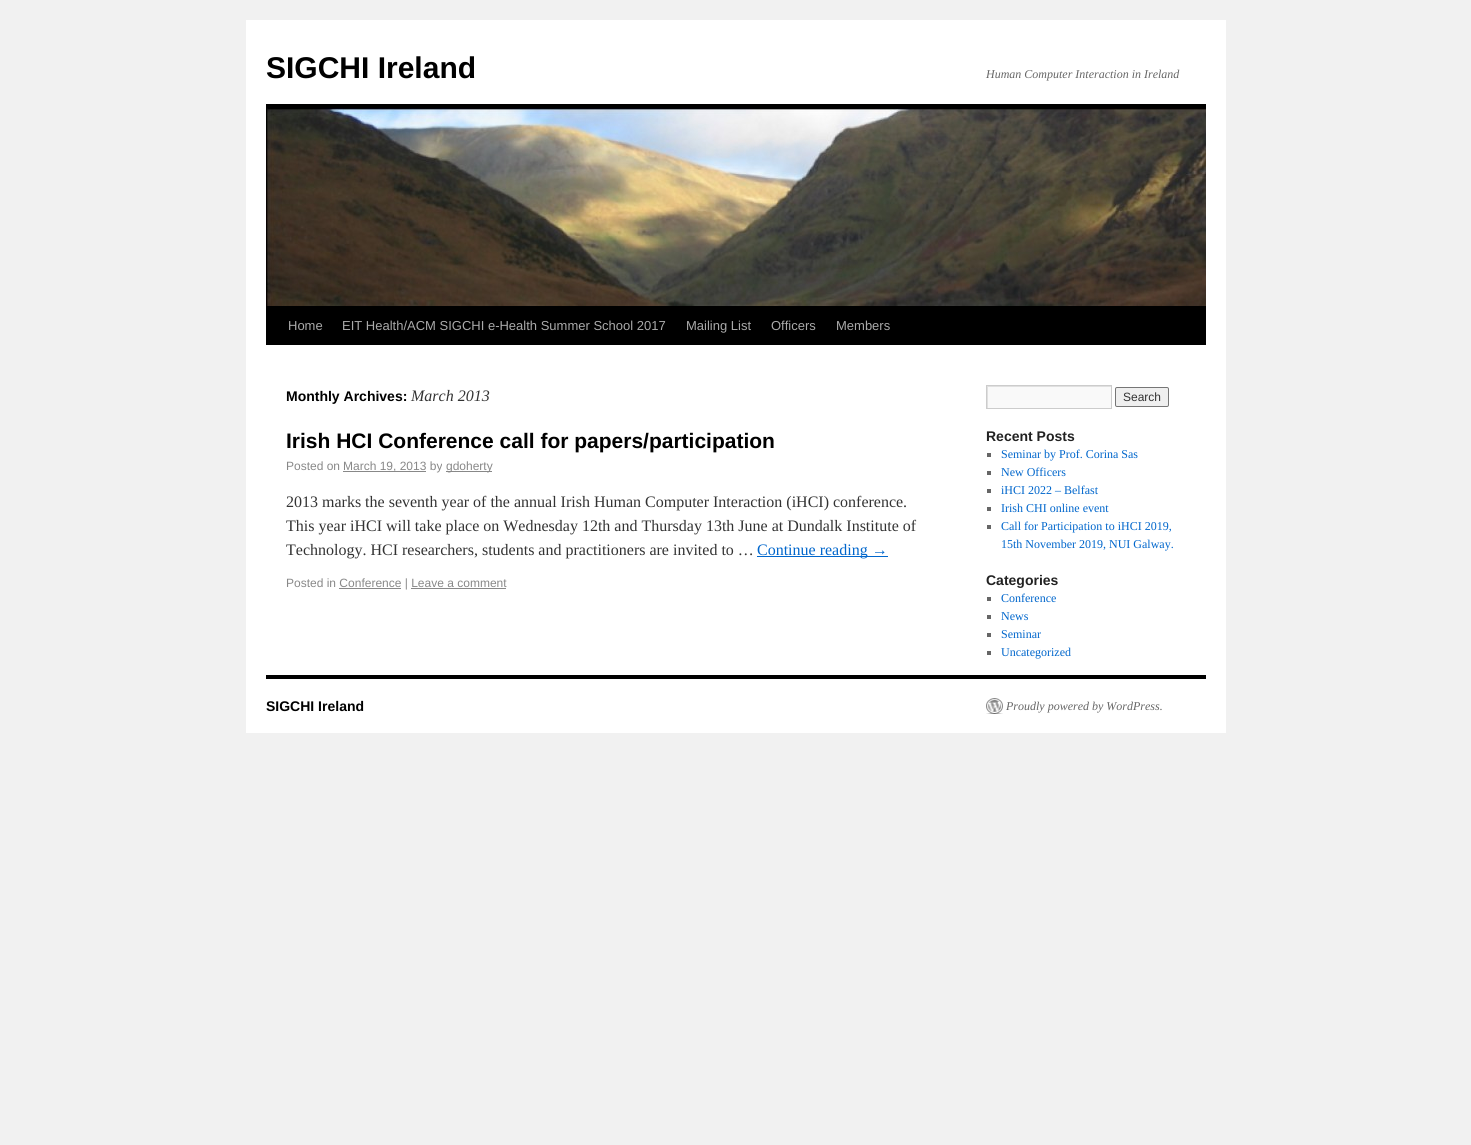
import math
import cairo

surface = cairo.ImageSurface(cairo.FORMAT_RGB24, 1471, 1145)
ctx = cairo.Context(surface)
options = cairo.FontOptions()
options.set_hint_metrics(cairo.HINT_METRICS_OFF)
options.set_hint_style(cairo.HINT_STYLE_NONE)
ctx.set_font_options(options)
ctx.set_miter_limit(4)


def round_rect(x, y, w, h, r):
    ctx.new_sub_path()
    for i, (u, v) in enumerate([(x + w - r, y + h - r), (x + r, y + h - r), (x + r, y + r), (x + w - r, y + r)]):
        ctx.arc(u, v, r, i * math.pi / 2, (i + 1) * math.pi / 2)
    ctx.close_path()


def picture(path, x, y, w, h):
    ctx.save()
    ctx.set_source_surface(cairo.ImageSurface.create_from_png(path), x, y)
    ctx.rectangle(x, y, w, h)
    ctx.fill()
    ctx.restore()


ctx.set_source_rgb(0.945, 0.945, 0.945)
ctx.paint()
ctx.set_source_rgb(1, 1, 1)
ctx.rectangle(246, 20, 980, 713)
ctx.fill()
ctx.select_font_face("Liberation Sans", cairo.FONT_SLANT_NORMAL, cairo.FONT_WEIGHT_BOLD)
ctx.set_font_size(30)
ctx.set_source_rgb(0, 0, 0)
ctx.move_to(266, 78)
ctx.show_text("SIGCHI Ireland")
ctx.select_font_face("Liberation Serif", cairo.FONT_SLANT_ITALIC)
ctx.set_font_size(12)
ctx.set_source_rgb(0.4, 0.4, 0.4)
ctx.move_to(986, 78)
ctx.show_text("Human Computer Interaction in Ireland")
ctx.set_source_rgb(0, 0, 0)
ctx.rectangle(266, 104, 940, 4)
ctx.fill()
ctx.rectangle(266, 306, 940, 39)
ctx.fill()
picture("img1.png", 266, 108, 940, 198)
ctx.select_font_face("Liberation Sans")
ctx.set_font_size(13)
ctx.set_source_rgb(0.667, 0.667, 0.667)
ctx.move_to(288, 330)
ctx.show_text("Home")
ctx.move_to(342, 330)
ctx.show_text("EIT Health/ACM SIGCHI e-Health Summer School 2017")
ctx.move_to(686, 330)
ctx.show_text("Mailing List")
ctx.move_to(771, 330)
ctx.show_text("Officers")
ctx.move_to(836, 330)
ctx.show_text("Members")
ctx.select_font_face("Liberation Sans", cairo.FONT_SLANT_NORMAL, cairo.FONT_WEIGHT_BOLD)
ctx.set_font_size(14)
ctx.set_source_rgb(0, 0, 0)
ctx.move_to(286, 401)
ctx.show_text("Monthly Archives:")
ctx.select_font_face("Liberation Serif", cairo.FONT_SLANT_ITALIC)
ctx.set_font_size(16)
ctx.set_source_rgb(0.2, 0.2, 0.2)
ctx.move_to(411, 401)
ctx.show_text("March 2013")
ctx.select_font_face("Liberation Sans", cairo.FONT_SLANT_NORMAL, cairo.FONT_WEIGHT_BOLD)
ctx.set_font_size(21)
ctx.set_source_rgb(0, 0, 0)
ctx.move_to(286, 448)
ctx.show_text("Irish HCI Conference call for papers/participation")
ctx.select_font_face("Liberation Sans")
ctx.set_font_size(12)
ctx.set_source_rgb(0.533, 0.533, 0.533)
ctx.move_to(286, 470)
ctx.show_text("Posted on")
ctx.rectangle(343, 471, 83, 1)
ctx.fill()
ctx.move_to(343, 470)
ctx.show_text("March 19, 2013 by")
ctx.rectangle(446, 471, 46, 1)
ctx.fill()
ctx.move_to(446, 470)
ctx.show_text("gdoherty")
ctx.select_font_face("Liberation Serif")
ctx.set_font_size(16)
ctx.set_source_rgb(0.2, 0.2, 0.2)
ctx.move_to(286, 507)
ctx.show_text("2013 marks the seventh year of the annual Irish Human Computer Interaction (iHCI) conference.")
ctx.move_to(286, 531)
ctx.show_text("This year iHCI will take place on Wednesday 12th and Thursday 13th June at Dundalk Institute of")
ctx.move_to(286, 555)
ctx.show_text("Technology. HCI researchers, students and practitioners are invited to …")
ctx.set_source_rgb(0, 0.4, 0.8)
ctx.rectangle(757, 556, 131, 1)
ctx.fill()
ctx.move_to(757, 555)
ctx.show_text("Continue reading →")
ctx.select_font_face("Liberation Sans")
ctx.set_font_size(12)
ctx.set_source_rgb(0.533, 0.533, 0.533)
ctx.move_to(286, 587)
ctx.show_text("Posted in Conference | Leave a comment")
ctx.rectangle(339, 588, 62, 1)
ctx.fill()
ctx.rectangle(411, 588, 95, 1)
ctx.fill()
ctx.set_source_rgb(0.976, 0.976, 0.976)
ctx.rectangle(988, 387, 123, 21)
ctx.fill()
ctx.save()
ctx.rectangle(987, 386, 124, 22)
ctx.clip()
ctx.set_source_rgb(0.878, 0.878, 0.878)
ctx.set_fill_rule(cairo.FILL_RULE_EVEN_ODD)
ctx.new_path()
ctx.move_to(888, 287)
ctx.line_to(1210, 287)
ctx.line_to(1210, 507)
ctx.line_to(888, 507)
ctx.close_path()
ctx.move_to(988, 387)
ctx.line_to(1112, 387)
ctx.line_to(1112, 409)
ctx.line_to(988, 409)
ctx.close_path()
ctx.fill()
ctx.restore()
ctx.rectangle(986.5, 385.5, 125, 23)
ctx.set_source_rgb(0.8, 0.8, 0.8)
ctx.set_line_width(1)
ctx.stroke()
ctx.set_source_rgb(0.937, 0.937, 0.937)
round_rect(1115.5, 387.5, 53, 19, 1.5)
ctx.fill_preserve()
ctx.set_source_rgb(0.463, 0.463, 0.463)
ctx.stroke()
ctx.set_source_rgb(0.2, 0.2, 0.2)
ctx.move_to(1123, 401)
ctx.show_text("Search")
ctx.select_font_face("Liberation Sans", cairo.FONT_SLANT_NORMAL, cairo.FONT_WEIGHT_BOLD)
ctx.set_font_size(14)
ctx.set_source_rgb(0.133, 0.133, 0.133)
ctx.move_to(986, 441)
ctx.show_text("Recent Posts")
ctx.set_source_rgb(0.4, 0.4, 0.4)
ctx.rectangle(987, 453, 4, 4)
ctx.fill()
ctx.select_font_face("Liberation Serif")
ctx.set_font_size(12)
ctx.set_source_rgb(0, 0.4, 0.8)
ctx.move_to(1001, 458)
ctx.show_text("Seminar by Prof. Corina Sas")
ctx.set_source_rgb(0.4, 0.4, 0.4)
ctx.rectangle(987, 471, 4, 4)
ctx.fill()
ctx.set_source_rgb(0, 0.4, 0.8)
ctx.move_to(1001, 476)
ctx.show_text("New Officers")
ctx.set_source_rgb(0.4, 0.4, 0.4)
ctx.rectangle(987, 489, 4, 4)
ctx.fill()
ctx.set_source_rgb(0, 0.4, 0.8)
ctx.move_to(1001, 494)
ctx.show_text("iHCI 2022 – Belfast")
ctx.set_source_rgb(0.4, 0.4, 0.4)
ctx.rectangle(987, 507, 4, 4)
ctx.fill()
ctx.set_source_rgb(0, 0.4, 0.8)
ctx.move_to(1001, 512)
ctx.show_text("Irish CHI online event")
ctx.set_source_rgb(0.4, 0.4, 0.4)
ctx.rectangle(987, 525, 4, 4)
ctx.fill()
ctx.set_source_rgb(0, 0.4, 0.8)
ctx.move_to(1001, 530)
ctx.show_text("Call for Participation to iHCI 2019,")
ctx.move_to(1001, 548)
ctx.show_text("15th November 2019, NUI Galway.")
ctx.select_font_face("Liberation Sans", cairo.FONT_SLANT_NORMAL, cairo.FONT_WEIGHT_BOLD)
ctx.set_font_size(14)
ctx.set_source_rgb(0.133, 0.133, 0.133)
ctx.move_to(986, 585)
ctx.show_text("Categories")
ctx.set_source_rgb(0.4, 0.4, 0.4)
ctx.rectangle(987, 597, 4, 4)
ctx.fill()
ctx.select_font_face("Liberation Serif")
ctx.set_font_size(12)
ctx.set_source_rgb(0, 0.4, 0.8)
ctx.move_to(1001, 602)
ctx.show_text("Conference")
ctx.set_source_rgb(0.4, 0.4, 0.4)
ctx.rectangle(987, 615, 4, 4)
ctx.fill()
ctx.set_source_rgb(0, 0.4, 0.8)
ctx.move_to(1001, 620)
ctx.show_text("News")
ctx.set_source_rgb(0.4, 0.4, 0.4)
ctx.rectangle(987, 633, 4, 4)
ctx.fill()
ctx.set_source_rgb(0, 0.4, 0.8)
ctx.move_to(1001, 638)
ctx.show_text("Seminar")
ctx.set_source_rgb(0.4, 0.4, 0.4)
ctx.rectangle(987, 651, 4, 4)
ctx.fill()
ctx.set_source_rgb(0, 0.4, 0.8)
ctx.move_to(1001, 656)
ctx.show_text("Uncategorized")
ctx.set_source_rgb(0, 0, 0)
ctx.rectangle(266, 675, 940, 4)
ctx.fill()
ctx.select_font_face("Liberation Sans", cairo.FONT_SLANT_NORMAL, cairo.FONT_WEIGHT_BOLD)
ctx.set_font_size(14)
ctx.move_to(266, 711)
ctx.show_text("SIGCHI Ireland")
picture("img2.png", 986, 698, 17, 16)
ctx.select_font_face("Liberation Serif", cairo.FONT_SLANT_ITALIC)
ctx.set_font_size(12)
ctx.set_source_rgb(0.4, 0.4, 0.4)
ctx.move_to(1006, 710)
ctx.show_text("Proudly powered by WordPress.")
surface.write_to_png("page.png")
